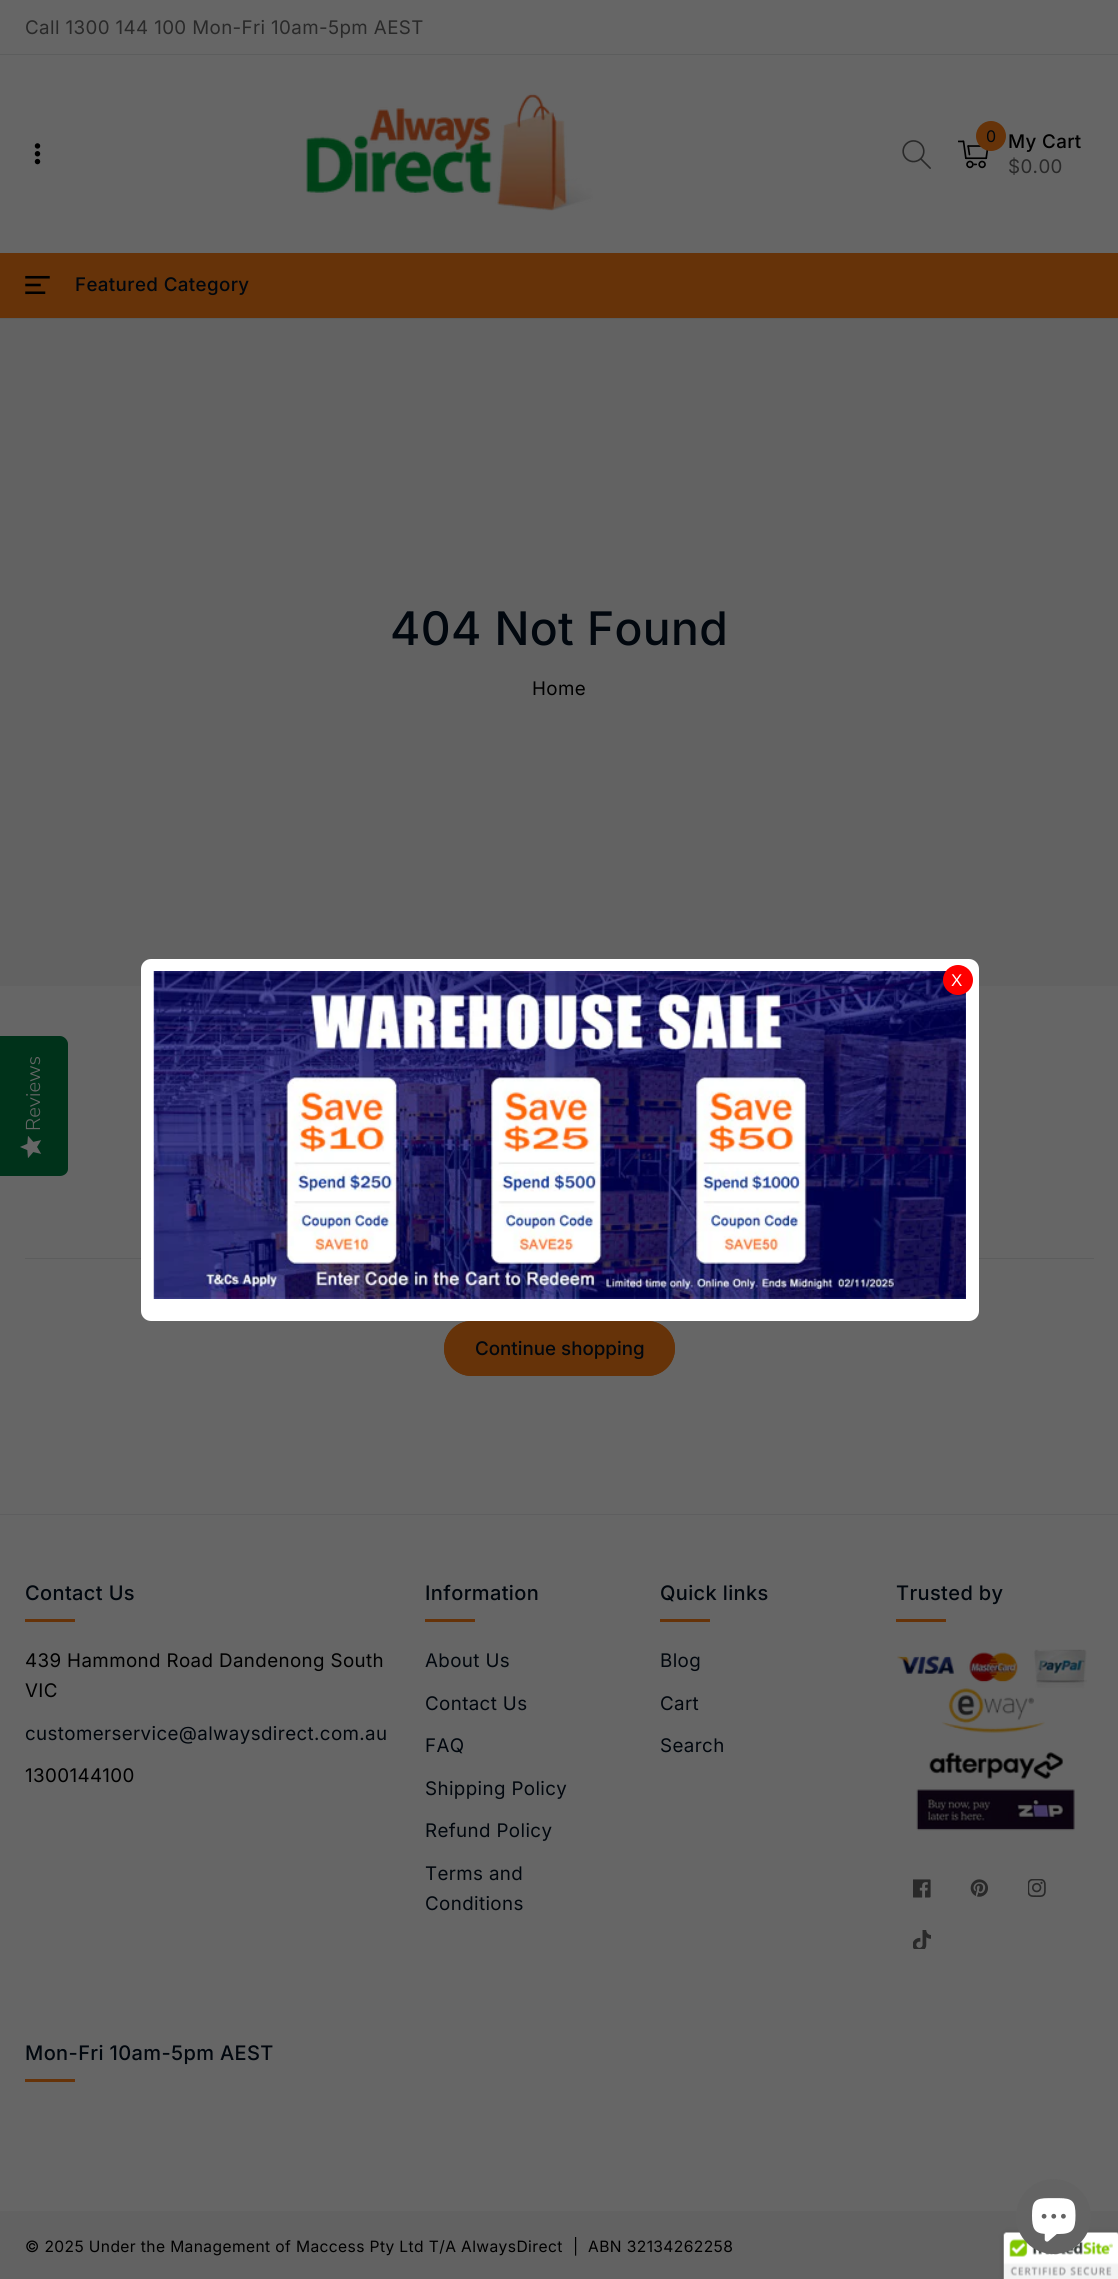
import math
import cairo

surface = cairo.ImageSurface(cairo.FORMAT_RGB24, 1118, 2279)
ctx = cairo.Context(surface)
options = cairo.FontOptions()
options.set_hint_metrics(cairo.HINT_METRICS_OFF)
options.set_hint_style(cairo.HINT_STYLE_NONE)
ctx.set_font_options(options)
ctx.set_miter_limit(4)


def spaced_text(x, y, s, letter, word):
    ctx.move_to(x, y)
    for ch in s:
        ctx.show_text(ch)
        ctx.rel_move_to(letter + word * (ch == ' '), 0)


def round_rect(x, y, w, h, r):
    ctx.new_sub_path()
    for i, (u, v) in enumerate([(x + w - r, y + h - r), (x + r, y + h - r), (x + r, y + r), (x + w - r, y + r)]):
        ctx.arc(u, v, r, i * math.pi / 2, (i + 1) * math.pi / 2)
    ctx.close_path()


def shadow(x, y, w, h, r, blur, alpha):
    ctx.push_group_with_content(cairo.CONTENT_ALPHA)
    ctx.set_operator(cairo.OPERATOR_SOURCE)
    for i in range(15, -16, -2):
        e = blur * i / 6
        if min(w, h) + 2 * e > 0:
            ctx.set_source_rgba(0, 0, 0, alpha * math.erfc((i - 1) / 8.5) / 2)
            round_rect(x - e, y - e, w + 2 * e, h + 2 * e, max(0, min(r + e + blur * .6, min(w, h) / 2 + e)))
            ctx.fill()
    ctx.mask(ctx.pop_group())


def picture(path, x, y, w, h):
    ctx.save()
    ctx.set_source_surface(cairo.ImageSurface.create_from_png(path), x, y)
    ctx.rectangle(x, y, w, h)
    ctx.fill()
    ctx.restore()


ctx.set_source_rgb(0.4, 0.4, 0.4)
ctx.paint()
ctx.set_source_rgb(0.361, 0.365, 0.365)
ctx.rectangle(0, 54, 1118, 1)
ctx.fill()
ctx.select_font_face("Inter")
ctx.set_font_size(18.75)
ctx.set_source_rgb(0.161, 0.161, 0.161)
spaced_text(25, 34, "Call 1300 144 100 Mon-Fri 10am-5pm AEST", 0.38, 0)
ctx.set_source_rgb(0.361, 0.365, 0.365)
ctx.rectangle(0, 318, 1118, 1)
ctx.fill()
picture("img1.png", 34, 143, 7, 22)
picture("img2.png", 306, 93, 287, 118)
picture("img3.png", 902, 140, 29, 29)
picture("img4.png", 958, 140, 31, 29)
ctx.set_source_rgb(0.4, 0.2, 0.039)
ctx.arc(991, 136, 15, 0, 2 * math.pi)
ctx.fill()
ctx.set_font_size(16)
ctx.set_source_rgb(0.004, 0.031, 0.055)
spaced_text(986, 142, "0", 0.38, 0)
ctx.select_font_face("Inter Medium")
ctx.set_font_size(18.75)
ctx.set_source_rgb(0, 0, 0)
spaced_text(1008, 148, "My Cart", 0.38, 0)
ctx.select_font_face("Inter")
ctx.set_source_rgb(0.161, 0.161, 0.161)
spaced_text(1008, 173, "$0.00", 0.38, 0)
ctx.set_source_rgb(0.4, 0.2, 0.039)
ctx.rectangle(0, 253, 1118, 65)
ctx.fill()
picture("img5.png", 25, 275, 25, 20)
ctx.select_font_face("Inter Medium")
ctx.set_source_rgb(0.004, 0.031, 0.055)
spaced_text(75, 291, "Featured Category", 0.38, 0)
ctx.set_source_rgb(0.384, 0.384, 0.384)
ctx.rectangle(0, 319, 1118, 667)
ctx.fill()
ctx.set_font_size(46.25)
ctx.set_source_rgb(0.004, 0.031, 0.055)
spaced_text(390, 645, "404 Not Found", 0.38, 0)
ctx.select_font_face("Inter")
ctx.set_font_size(18.75)
ctx.set_source_rgb(0, 0, 0)
spaced_text(532, 695, "Home", 0.38, 0)
ctx.set_source_rgb(0.361, 0.365, 0.365)
ctx.rectangle(25, 1258, 1069, 1)
ctx.fill()
ctx.set_source_rgb(1, 1, 1)
round_rect(141, 959, 838, 362, 10)
ctx.fill()
picture("img6.png", 153, 971, 813, 328)
ctx.set_source_rgb(1, 0, 0)
ctx.arc(958, 980, 15, 0, 2 * math.pi)
ctx.fill()
ctx.select_font_face("Liberation Sans")
ctx.set_font_size(17)
ctx.set_source_rgb(1, 1, 1)
ctx.move_to(951, 986)
ctx.show_text("X")
ctx.set_source_rgb(0, 0.196, 0.102)
ctx.new_path()
ctx.move_to(0, 1176)
ctx.line_to(0, 1036)
ctx.line_to(60, 1036)
ctx.curve_to(64, 1036, 68, 1040, 68, 1044)
ctx.line_to(68, 1169)
ctx.curve_to(68, 1173, 64, 1176, 60, 1176)
ctx.close_path()
ctx.fill()
ctx.select_font_face("Nunito Sans Light")
ctx.set_font_size(20)
ctx.set_source_rgb(0.4, 0.4, 0.4)
ctx.save()
ctx.translate(40, 1131)
ctx.rotate(-90 * math.pi / 180)
ctx.move_to(0, 0)
ctx.show_text("Reviews")
ctx.restore()
picture("img7.png", 20, 1136, 22, 22)
ctx.set_source_rgb(0.4, 0.2, 0.039)
round_rect(444, 1321, 231, 55, 27.5)
ctx.fill()
round_rect(444.5, 1321.5, 230, 54, 27)
ctx.set_line_width(1)
ctx.stroke()
ctx.select_font_face("Inter Medium")
ctx.set_font_size(18.75)
ctx.set_source_rgb(0.004, 0.031, 0.055)
ctx.move_to(475, 1355)
ctx.show_text("Continue shopping")
ctx.set_source_rgb(0.369, 0.369, 0.373)
ctx.rectangle(0, 1514, 1118, 1)
ctx.fill()
ctx.set_font_size(20)
ctx.set_source_rgb(0.004, 0.031, 0.055)
spaced_text(25, 1600, "Contact Us", 0.38, 0)
ctx.set_source_rgb(0.4, 0.2, 0.039)
ctx.rectangle(25, 1619, 50, 3)
ctx.fill()
ctx.select_font_face("Inter")
ctx.set_font_size(18.75)
ctx.set_source_rgb(0, 0, 0)
spaced_text(25, 1667, "439 Hammond Road Dandenong South", 0.38, 0)
spaced_text(25, 1697, "VIC", 0.38, 0)
ctx.set_source_rgb(0.004, 0.031, 0.055)
spaced_text(25, 1740, "customerservice@alwaysdirect.com.au", 0.38, 0)
ctx.set_source_rgb(0, 0, 0)
spaced_text(25, 1782, "1300144100", 0.38, 0)
ctx.select_font_face("Inter Medium")
ctx.set_font_size(20)
ctx.set_source_rgb(0.004, 0.031, 0.055)
spaced_text(425, 1600, "Information", 0.38, 0)
ctx.set_source_rgb(0.4, 0.2, 0.039)
ctx.rectangle(425, 1619, 50, 3)
ctx.fill()
ctx.select_font_face("Inter")
ctx.set_font_size(18.75)
ctx.set_source_rgb(0.004, 0.031, 0.055)
spaced_text(425, 1667, "About Us", 0.38, 0)
spaced_text(425, 1710, "Contact Us", 0.38, 0)
spaced_text(425, 1752, "FAQ", 0.38, 0)
spaced_text(425, 1795, "Shipping Policy", 0.38, 0)
spaced_text(425, 1837, "Refund Policy", 0.38, 0)
spaced_text(425, 1880, "Terms and", 0.38, 0)
spaced_text(425, 1910, "Conditions", 0.38, 0)
ctx.select_font_face("Inter Medium")
ctx.set_font_size(20)
spaced_text(660, 1600, "Quick links", 0.38, 0)
ctx.set_source_rgb(0.4, 0.2, 0.039)
ctx.rectangle(660, 1619, 50, 3)
ctx.fill()
ctx.select_font_face("Inter")
ctx.set_font_size(18.75)
ctx.set_source_rgb(0.004, 0.031, 0.055)
spaced_text(660, 1667, "Blog", 0.38, 0)
spaced_text(660, 1710, "Cart", 0.38, 0)
spaced_text(660, 1752, "Search", 0.38, 0)
ctx.select_font_face("Inter Medium")
ctx.set_font_size(20)
spaced_text(896, 1600, "Trusted by", 0.38, 0)
ctx.set_source_rgb(0.4, 0.2, 0.039)
ctx.rectangle(896, 1619, 50, 3)
ctx.fill()
picture("img8.png", 897, 1649, 190, 84)
picture("img9.png", 916, 1752, 159, 79)
picture("img10.png", 913, 1879, 18, 19)
picture("img11.png", 970, 1879, 18, 18)
picture("img12.png", 1028, 1879, 18, 18)
picture("img13.png", 913, 1930, 18, 19)
ctx.set_source_rgb(0.004, 0.031, 0.055)
spaced_text(25, 2060, "Mon-Fri 10am-5pm AEST", 0.38, 0)
ctx.set_source_rgb(0.4, 0.2, 0.039)
ctx.rectangle(25, 2079, 50, 3)
ctx.fill()
ctx.set_source_rgb(0.384, 0.384, 0.384)
ctx.rectangle(0, 2211, 1118, 68)
ctx.fill()
ctx.select_font_face("Inter")
ctx.set_font_size(15.6)
ctx.set_source_rgb(0, 0, 0)
spaced_text(25, 2252, "© 2025 Under the Management of Maccess Pty Ltd T/A AlwaysDirect", 0.38, 0)
spaced_text(573, 2252, "|  ABN 32134262258", 0.38, 0)
ctx.set_source_rgb(0, 0, 0)
shadow(1004, 2233, 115, 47, 2.5, 3, 0.2)
picture("img15.png", 1003, 2232, 115, 47)
ctx.set_source_rgb(0.388, 0.388, 0.388)
ctx.arc(1053.5, 2216.5, 37.5, 0, 2 * math.pi)
ctx.fill()
picture("img14.png", 1032, 2198, 44, 44)
surface.write_to_png("page.png")
